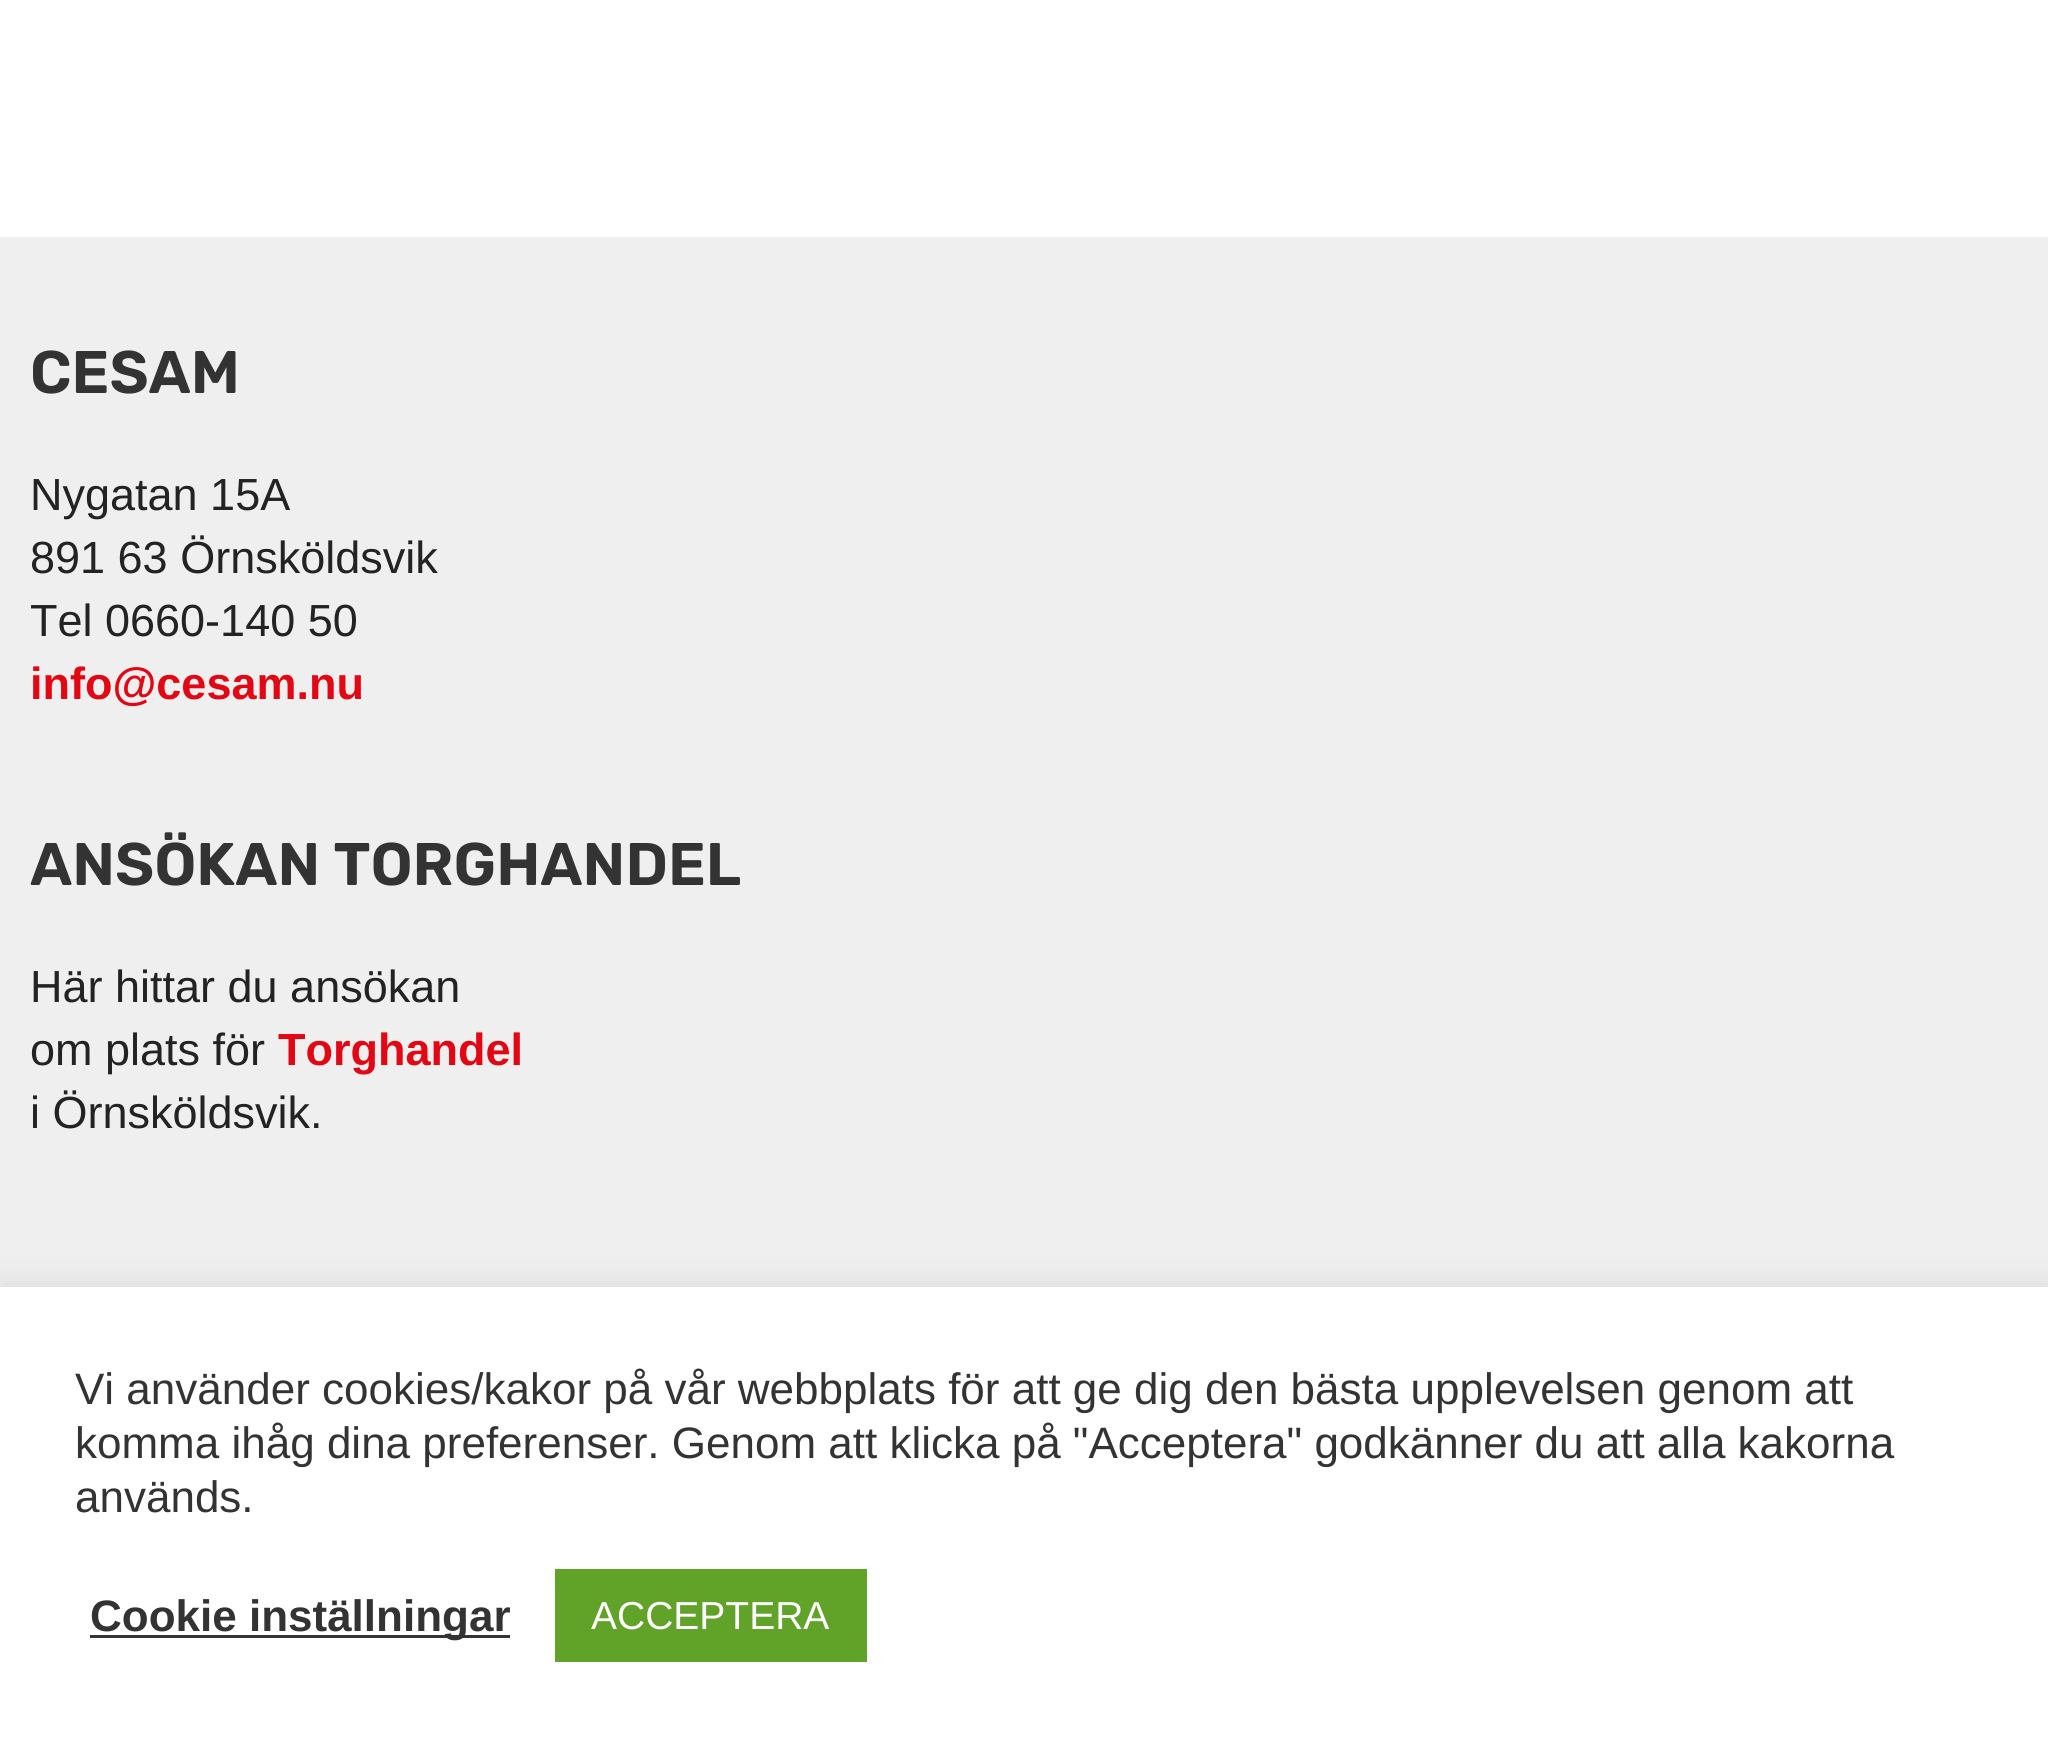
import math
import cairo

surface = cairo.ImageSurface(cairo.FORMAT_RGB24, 2048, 1751)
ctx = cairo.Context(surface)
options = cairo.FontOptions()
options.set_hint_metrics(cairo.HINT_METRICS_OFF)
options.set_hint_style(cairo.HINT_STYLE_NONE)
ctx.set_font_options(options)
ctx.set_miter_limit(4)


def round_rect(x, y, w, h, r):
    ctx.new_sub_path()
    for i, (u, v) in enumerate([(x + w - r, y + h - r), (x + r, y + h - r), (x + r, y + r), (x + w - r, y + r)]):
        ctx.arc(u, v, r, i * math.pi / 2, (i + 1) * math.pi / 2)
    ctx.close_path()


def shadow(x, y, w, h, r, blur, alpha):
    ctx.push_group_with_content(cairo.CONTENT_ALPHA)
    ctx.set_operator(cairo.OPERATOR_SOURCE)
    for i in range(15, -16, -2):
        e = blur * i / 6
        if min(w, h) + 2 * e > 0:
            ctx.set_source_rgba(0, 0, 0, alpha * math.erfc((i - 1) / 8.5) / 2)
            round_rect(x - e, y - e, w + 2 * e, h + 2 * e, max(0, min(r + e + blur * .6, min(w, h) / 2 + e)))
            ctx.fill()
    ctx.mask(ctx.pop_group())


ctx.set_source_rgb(1, 1, 1)
ctx.paint()
ctx.set_source_rgb(0.937, 0.937, 0.937)
ctx.rectangle(0, 237, 2048, 1050)
ctx.fill()
ctx.select_font_face("Rubik SemiBold")
ctx.set_font_size(60)
ctx.set_source_rgb(0.2, 0.2, 0.2)
ctx.move_to(30, 393)
ctx.show_text("CESAM")
ctx.select_font_face("Liberation Sans")
ctx.set_font_size(45)
ctx.set_source_rgb(0.137, 0.137, 0.137)
ctx.move_to(30, 510)
ctx.show_text("Nygatan 15A")
ctx.move_to(30, 573)
ctx.show_text("891 63 Örnsköldsvik")
ctx.move_to(30, 636)
ctx.show_text("Tel 0660-140 50")
ctx.select_font_face("Liberation Sans", cairo.FONT_SLANT_NORMAL, cairo.FONT_WEIGHT_BOLD)
ctx.set_source_rgb(0.89, 0.027, 0.075)
ctx.move_to(30, 699)
ctx.show_text("info@cesam.nu")
ctx.select_font_face("Rubik SemiBold")
ctx.set_font_size(60)
ctx.set_source_rgb(0.2, 0.2, 0.2)
ctx.move_to(30, 885)
ctx.show_text("ANSÖKAN TORGHANDEL")
ctx.select_font_face("Liberation Sans")
ctx.set_font_size(45)
ctx.set_source_rgb(0.137, 0.137, 0.137)
ctx.move_to(30, 1002)
ctx.show_text("Här hittar du ansökan")
ctx.move_to(30, 1065)
ctx.show_text("om plats för")
ctx.select_font_face("Liberation Sans", cairo.FONT_SLANT_NORMAL, cairo.FONT_WEIGHT_BOLD)
ctx.set_source_rgb(0.89, 0.027, 0.075)
ctx.move_to(278, 1065)
ctx.show_text("Torghandel")
ctx.select_font_face("Liberation Sans")
ctx.set_source_rgb(0.137, 0.137, 0.137)
ctx.move_to(30, 1128)
ctx.show_text("i Örnsköldsvik.")
ctx.set_source_rgb(0.675, 0.671, 0.671)
shadow(0, 1284, 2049, 465, 0, 15, 0.3)
ctx.set_source_rgb(1, 1, 1)
ctx.rectangle(0, 1287, 2048, 464)
ctx.fill()
ctx.set_font_size(44)
ctx.set_source_rgb(0.2, 0.2, 0.2)
ctx.move_to(75, 1404)
ctx.show_text("Vi använder cookies/kakor på vår webbplats för att ge dig den bästa upplevelsen genom att")
ctx.move_to(75, 1458)
ctx.show_text("komma ihåg dina preferenser. Genom att klicka på \"Acceptera\" godkänner du att alla kakorna")
ctx.move_to(75, 1512)
ctx.show_text("används.")
ctx.rectangle(90, 1635, 420, 3)
ctx.fill()
ctx.select_font_face("Liberation Sans", cairo.FONT_SLANT_NORMAL, cairo.FONT_WEIGHT_BOLD)
ctx.move_to(90, 1631)
ctx.show_text("Cookie inställningar")
ctx.set_source_rgb(0.38, 0.635, 0.161)
ctx.rectangle(555, 1569, 312, 93)
ctx.fill()
ctx.select_font_face("Liberation Sans")
ctx.set_font_size(39)
ctx.set_source_rgb(1, 1, 1)
ctx.move_to(591, 1629)
ctx.show_text("ACCEPTERA")
surface.write_to_png("page.png")
